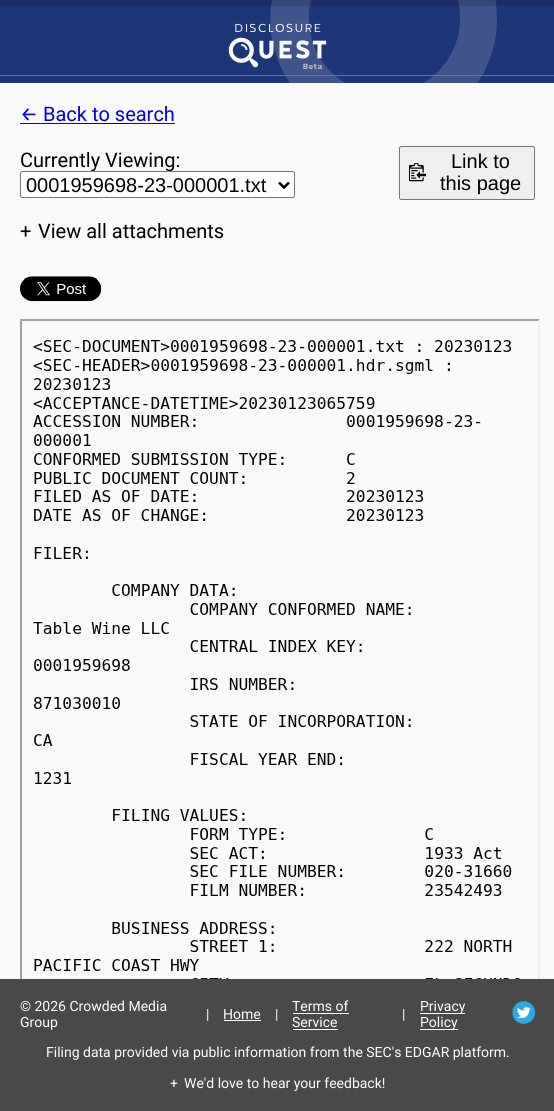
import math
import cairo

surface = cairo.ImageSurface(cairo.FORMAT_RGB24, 554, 1111)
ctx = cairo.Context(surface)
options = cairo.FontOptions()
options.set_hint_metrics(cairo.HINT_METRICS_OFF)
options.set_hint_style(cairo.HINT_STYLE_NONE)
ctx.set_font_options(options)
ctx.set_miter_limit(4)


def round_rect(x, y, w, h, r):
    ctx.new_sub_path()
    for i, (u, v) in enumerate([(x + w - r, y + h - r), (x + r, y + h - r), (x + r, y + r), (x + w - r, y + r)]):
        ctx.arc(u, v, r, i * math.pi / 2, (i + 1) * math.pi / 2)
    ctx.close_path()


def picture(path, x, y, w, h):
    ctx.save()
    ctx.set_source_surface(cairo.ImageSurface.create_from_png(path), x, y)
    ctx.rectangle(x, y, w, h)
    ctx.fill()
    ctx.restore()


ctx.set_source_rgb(0.973, 0.973, 0.973)
ctx.paint()
ctx.set_source_rgb(0.11, 0.212, 0.467)
ctx.rectangle(0, 0, 554, 83)
ctx.fill()
picture("img1.png", 270, 0, 227, 83)
ctx.set_source_rgba(0, 0, 0, 0.15)
ctx.rectangle(0, 0, 554, 6)
ctx.fill()
picture("img2.png", 228, 23, 99, 47)
ctx.set_source_rgb(0, 0.663, 0.624)
ctx.rectangle(0, 75, 554, 1)
ctx.fill()
ctx.select_font_face("Fira Sans")
ctx.set_font_size(20)
ctx.set_source_rgb(0, 0, 0.933)
ctx.move_to(20, 121)
ctx.show_text("←")
ctx.rectangle(20, 123, 155, 1)
ctx.fill()
ctx.select_font_face("Roboto")
ctx.move_to(43, 121)
ctx.show_text("Back to search")
ctx.set_source_rgb(0, 0, 0)
ctx.move_to(20, 167)
ctx.show_text("Currently Viewing:")
ctx.set_source_rgb(1, 1, 1)
round_rect(20.5, 171.5, 274, 26, 2)
ctx.fill_preserve()
ctx.set_source_rgb(0.463, 0.463, 0.463)
ctx.set_line_width(1)
ctx.stroke()
ctx.new_path()
ctx.move_to(279, 182.5)
ctx.line_to(284, 187.5)
ctx.line_to(289, 182.5)
ctx.set_source_rgb(0, 0, 0)
ctx.set_line_width(2.5)
ctx.stroke()
ctx.select_font_face("Liberation Sans")
ctx.move_to(26, 192)
ctx.show_text("0001959698-23-000001.txt")
ctx.set_source_rgb(0.937, 0.937, 0.937)
round_rect(399.5, 146.5, 135, 53, 2)
ctx.fill_preserve()
ctx.set_source_rgb(0.463, 0.463, 0.463)
ctx.set_line_width(1)
ctx.stroke()
picture("img3.png", 409, 163, 17, 19)
ctx.set_source_rgb(0, 0, 0)
ctx.move_to(451, 168)
ctx.show_text("Link to")
ctx.move_to(440, 190)
ctx.show_text("this page")
ctx.select_font_face("Roboto")
ctx.move_to(20, 238)
ctx.show_text("+")
ctx.move_to(38, 238)
ctx.show_text("View all attachments")
picture("img4.png", 20, 276, 82, 26)
ctx.set_source_rgb(0.624, 0.624, 0.624)
ctx.new_path()
ctx.move_to(20, 319)
ctx.line_to(540, 319)
ctx.line_to(538, 321)
ctx.line_to(22, 321)
ctx.close_path()
ctx.fill()
ctx.save()
ctx.rectangle(0, 83, 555, 896)
ctx.clip()
ctx.new_path()
ctx.move_to(20, 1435)
ctx.line_to(20, 319)
ctx.line_to(22, 321)
ctx.line_to(22, 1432)
ctx.close_path()
ctx.fill()
ctx.restore()
picture("img5.png", 33, 340, 487, 639)
ctx.save()
ctx.rectangle(0, 83, 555, 896)
ctx.clip()
ctx.set_source_rgb(0.933, 0.933, 0.933)
ctx.new_path()
ctx.move_to(540, 319)
ctx.line_to(540, 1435)
ctx.line_to(538, 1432)
ctx.line_to(538, 321)
ctx.close_path()
ctx.fill()
ctx.restore()
ctx.set_source_rgb(0.286, 0.286, 0.286)
ctx.rectangle(0, 979, 554, 132)
ctx.fill()
ctx.set_font_size(14)
ctx.set_source_rgb(1, 1, 1)
ctx.move_to(20, 1011)
ctx.show_text("© 2026 Crowded Media")
ctx.move_to(20, 1027)
ctx.show_text("Group")
ctx.move_to(206, 1019)
ctx.show_text("|")
ctx.move_to(223, 1019)
ctx.show_text("Home")
ctx.rectangle(224, 1020, 37, 1)
ctx.fill()
ctx.move_to(275, 1019)
ctx.show_text("|")
ctx.move_to(292, 1011)
ctx.show_text("Terms of")
ctx.rectangle(293, 1013, 56, 1)
ctx.fill()
ctx.move_to(292, 1027)
ctx.show_text("Service")
ctx.rectangle(293, 1029, 45, 1)
ctx.fill()
ctx.move_to(402, 1019)
ctx.show_text("|")
ctx.rectangle(420, 1013, 45, 1)
ctx.fill()
ctx.move_to(420, 1011)
ctx.show_text("Privacy")
ctx.rectangle(420, 1029, 38, 1)
ctx.fill()
ctx.move_to(420, 1027)
ctx.show_text("Policy")
picture("img6.png", 512, 1001, 23, 23)
ctx.move_to(46, 1057)
ctx.show_text("Filing data provided via public information from the SEC's EDGAR platform.")
ctx.move_to(170, 1088)
ctx.show_text("+")
ctx.move_to(184, 1088)
ctx.show_text("We'd love to hear your feedback!")
surface.write_to_png("page.png")
